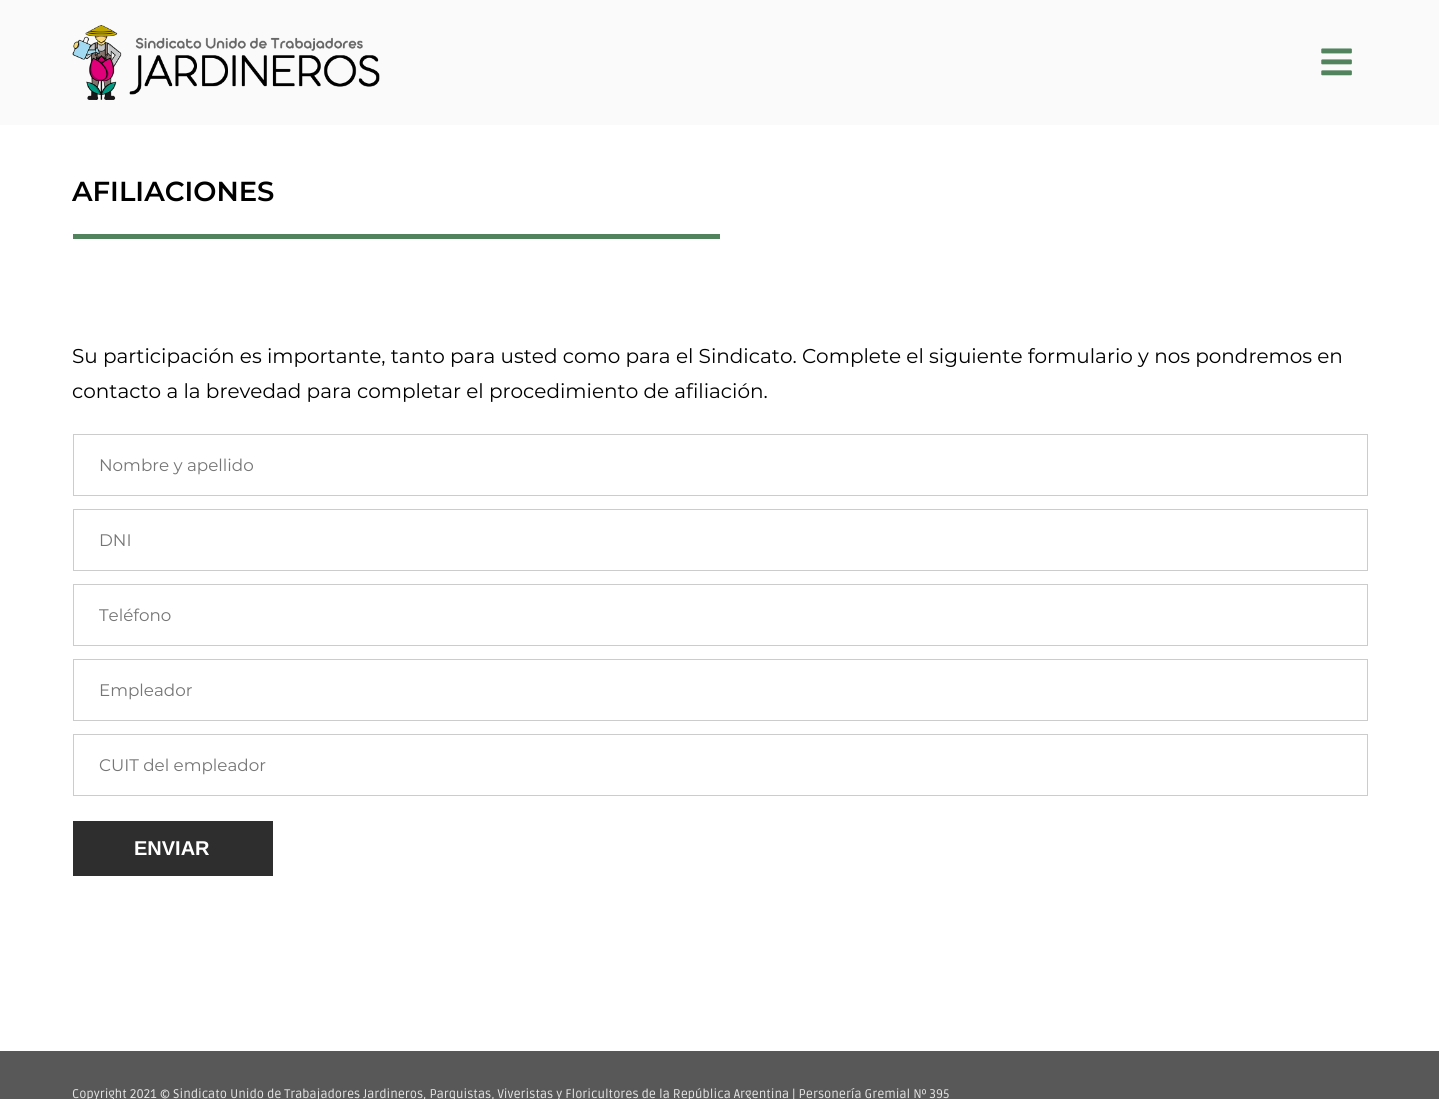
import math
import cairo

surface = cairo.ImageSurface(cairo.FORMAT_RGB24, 1439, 1099)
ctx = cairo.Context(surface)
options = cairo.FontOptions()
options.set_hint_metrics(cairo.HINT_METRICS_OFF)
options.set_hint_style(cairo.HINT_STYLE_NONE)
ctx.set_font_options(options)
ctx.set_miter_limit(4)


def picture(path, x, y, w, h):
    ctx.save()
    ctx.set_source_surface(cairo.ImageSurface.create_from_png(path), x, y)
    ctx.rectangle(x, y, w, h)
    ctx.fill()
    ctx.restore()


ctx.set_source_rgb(1, 1, 1)
ctx.paint()
ctx.set_source_rgb(0.98, 0.98, 0.98)
ctx.rectangle(0, 0, 1439, 125)
ctx.fill()
picture("img1.png", 72, 25, 308, 75)
picture("img2.png", 1321, 48, 31, 28)
ctx.select_font_face("Montserrat SemiBold")
ctx.set_font_size(27.5)
ctx.set_source_rgb(0, 0, 0)
ctx.move_to(72, 201)
ctx.show_text("AFILIACIONES")
ctx.set_source_rgb(0.318, 0.514, 0.365)
ctx.rectangle(73, 234, 647, 5)
ctx.fill()
ctx.select_font_face("Montserrat")
ctx.set_font_size(20)
ctx.set_source_rgb(0, 0, 0)
ctx.move_to(72, 363)
ctx.show_text("Su participación es importante, tanto para usted como para el Sindicato. Complete el siguiente formulario y nos pondremos en")
ctx.move_to(72, 398)
ctx.show_text("contacto a la brevedad para completar el procedimiento de afiliación.")
ctx.rectangle(73.5, 434.5, 1294, 61)
ctx.set_source_rgb(0.8, 0.8, 0.8)
ctx.set_line_width(1)
ctx.stroke()
ctx.set_font_size(16.75)
ctx.set_source_rgb(0.459, 0.459, 0.459)
ctx.move_to(99, 471)
ctx.show_text("Nombre y apellido")
ctx.rectangle(73.5, 509.5, 1294, 61)
ctx.set_source_rgb(0.8, 0.8, 0.8)
ctx.stroke()
ctx.set_source_rgb(0.459, 0.459, 0.459)
ctx.move_to(99, 546)
ctx.show_text("DNI")
ctx.rectangle(73.5, 584.5, 1294, 61)
ctx.set_source_rgb(0.8, 0.8, 0.8)
ctx.stroke()
ctx.set_source_rgb(0.459, 0.459, 0.459)
ctx.move_to(99, 621)
ctx.show_text("Teléfono")
ctx.rectangle(73.5, 659.5, 1294, 61)
ctx.set_source_rgb(0.8, 0.8, 0.8)
ctx.stroke()
ctx.set_source_rgb(0.459, 0.459, 0.459)
ctx.move_to(99, 696)
ctx.show_text("Empleador")
ctx.rectangle(73.5, 734.5, 1294, 61)
ctx.set_source_rgb(0.8, 0.8, 0.8)
ctx.stroke()
ctx.set_source_rgb(0.459, 0.459, 0.459)
ctx.move_to(99, 771)
ctx.show_text("CUIT del empleador")
ctx.set_source_rgb(0.18, 0.18, 0.18)
ctx.rectangle(73, 821, 200, 55)
ctx.fill()
ctx.select_font_face("Liberation Sans", cairo.FONT_SLANT_NORMAL, cairo.FONT_WEIGHT_BOLD)
ctx.set_font_size(20)
ctx.set_source_rgb(1, 1, 1)
ctx.move_to(134, 855)
ctx.show_text("ENVIAR")
ctx.set_source_rgb(0.345, 0.345, 0.345)
ctx.rectangle(0, 1051, 1439, 48)
ctx.fill()
ctx.select_font_face("Ruda")
ctx.set_font_size(12.5)
ctx.set_source_rgb(0.902, 0.902, 0.902)
ctx.move_to(72, 1098)
ctx.show_text("Copyright 2021 © Sindicato Unido de Trabajadores Jardineros, Parquistas, Viveristas y Floricultores de la República Argentina | Personería Gremial Nº 395")
surface.write_to_png("page.png")
